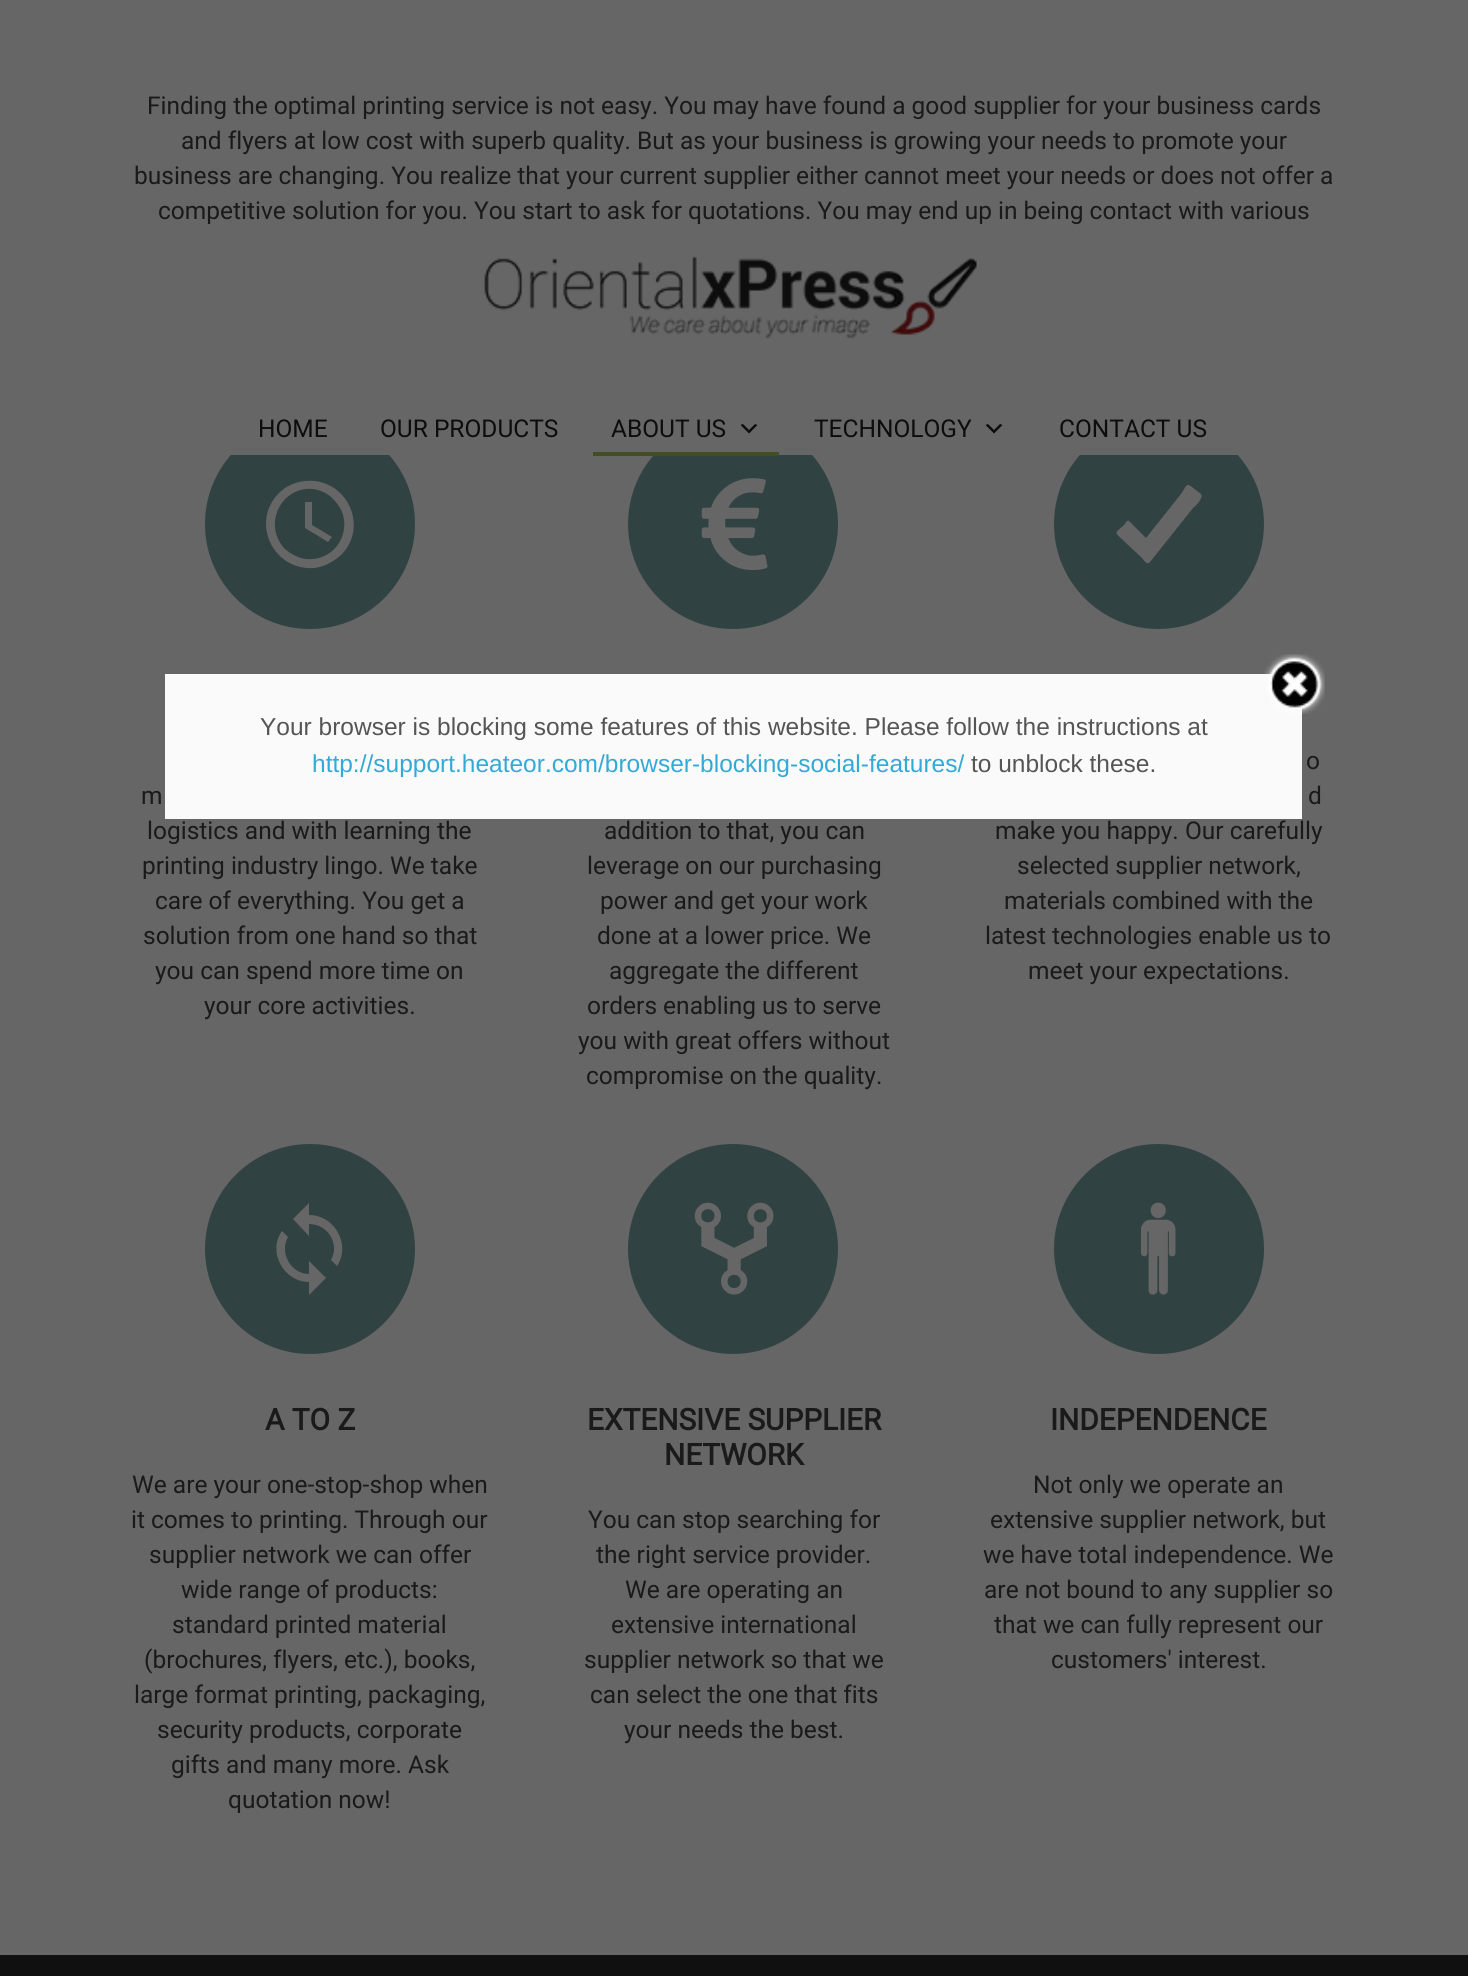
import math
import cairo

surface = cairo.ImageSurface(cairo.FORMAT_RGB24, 1468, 1976)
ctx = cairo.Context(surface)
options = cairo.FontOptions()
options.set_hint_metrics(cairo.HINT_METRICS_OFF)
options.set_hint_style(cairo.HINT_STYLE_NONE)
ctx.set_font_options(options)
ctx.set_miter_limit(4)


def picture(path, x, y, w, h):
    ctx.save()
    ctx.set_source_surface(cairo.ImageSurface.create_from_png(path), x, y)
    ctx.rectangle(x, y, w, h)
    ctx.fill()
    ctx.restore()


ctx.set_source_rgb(0.4, 0.4, 0.4)
ctx.paint()
ctx.select_font_face("Roboto")
ctx.set_font_size(24.5)
ctx.set_source_rgb(0.102, 0.102, 0.102)
ctx.move_to(147, 114)
ctx.show_text("Finding the optimal printing service is not easy. You may have found a good supplier for your business cards")
ctx.move_to(181, 149)
ctx.show_text("and flyers at low cost with superb quality. But as your business is growing your needs to promote your")
ctx.move_to(134, 184)
ctx.show_text("business are changing. You realize that your current supplier either cannot meet your needs or does not offer a")
ctx.move_to(158, 219)
ctx.show_text("competitive solution for you. You start to ask for quotations. You may end up in being contact with various")
ctx.set_source_rgb(0.192, 0.259, 0.263)
ctx.new_path()
ctx.move_to(415, 524)
ctx.curve_to(415, 582, 368, 629, 310, 629)
ctx.curve_to(252, 629, 205, 582, 205, 524)
ctx.curve_to(205, 466, 252, 419, 310, 419)
ctx.curve_to(368, 419, 415, 466, 415, 524)
ctx.close_path()
ctx.fill()
ctx.set_source_rgb(0.4, 0.4, 0.4)
ctx.new_path()
ctx.move_to(279, 493)
ctx.curve_to(286, 486, 295, 482, 305, 481)
ctx.curve_to(346, 477, 370, 526, 341, 555)
ctx.curve_to(333, 562, 324, 567, 314, 568)
ctx.curve_to(273, 571, 250, 522, 279, 493)
ctx.close_path()
ctx.move_to(285, 549)
ctx.curve_to(291, 554, 298, 558, 306, 559)
ctx.curve_to(339, 562, 357, 523, 334, 500)
ctx.curve_to(329, 494, 321, 490, 313, 489)
ctx.curve_to(281, 486, 262, 525, 285, 549)
ctx.close_path()
ctx.move_to(312, 502)
ctx.line_to(312, 525)
ctx.line_to(332, 537)
ctx.line_to(328, 542)
ctx.line_to(305, 528)
ctx.line_to(305, 502)
ctx.close_path()
ctx.fill()
ctx.set_source_rgb(0.102, 0.102, 0.102)
ctx.move_to(141, 804)
ctx.show_text("m")
ctx.move_to(147, 839)
ctx.show_text("logistics and with learning the")
ctx.move_to(142, 874)
ctx.show_text("printing industry lingo. We take")
ctx.move_to(155, 909)
ctx.show_text("care of everything. You get a")
ctx.move_to(143, 944)
ctx.show_text("solution from one hand so that")
ctx.move_to(155, 979)
ctx.show_text("you can spend more time on")
ctx.move_to(204, 1014)
ctx.show_text("your core activities.")
ctx.set_source_rgb(0.192, 0.259, 0.263)
ctx.new_path()
ctx.move_to(838, 524)
ctx.curve_to(838, 582, 791, 629, 733, 629)
ctx.curve_to(675, 629, 628, 582, 628, 524)
ctx.curve_to(628, 466, 675, 419, 733, 419)
ctx.curve_to(791, 419, 838, 466, 838, 524)
ctx.close_path()
ctx.fill()
picture("img1.png", 701, 478, 67, 93)
ctx.set_source_rgb(0.102, 0.102, 0.102)
ctx.move_to(604, 839)
ctx.show_text("addition to that, you can")
ctx.move_to(587, 874)
ctx.show_text("leverage on our purchasing")
ctx.move_to(600, 909)
ctx.show_text("power and get your work")
ctx.move_to(597, 944)
ctx.show_text("done at a lower price. We")
ctx.move_to(609, 979)
ctx.show_text("aggregate the different")
ctx.move_to(587, 1014)
ctx.show_text("orders enabling us to serve")
ctx.move_to(578, 1049)
ctx.show_text("you with great offers without")
ctx.move_to(586, 1084)
ctx.show_text("compromise on the quality.")
ctx.set_source_rgb(0.192, 0.259, 0.263)
ctx.new_path()
ctx.move_to(1264, 524)
ctx.curve_to(1264, 582, 1216, 629, 1158, 629)
ctx.curve_to(1101, 629, 1054, 582, 1054, 524)
ctx.curve_to(1054, 466, 1101, 419, 1158, 419)
ctx.curve_to(1216, 419, 1264, 466, 1264, 524)
ctx.close_path()
ctx.fill()
ctx.set_source_rgb(0.4, 0.4, 0.4)
ctx.new_path()
ctx.move_to(1201, 494)
ctx.curve_to(1204, 499, 1194, 507, 1193, 508)
ctx.line_to(1150, 562)
ctx.curve_to(1147, 566, 1143, 559, 1142, 558)
ctx.line_to(1127, 544)
ctx.curve_to(1114, 531, 1113, 535, 1125, 524)
ctx.curve_to(1126, 522, 1127, 520, 1129, 521)
ctx.line_to(1146, 538)
ctx.line_to(1181, 494)
ctx.curve_to(1186, 487, 1186, 482, 1192, 487)
ctx.close_path()
ctx.fill()
ctx.set_source_rgb(0.102, 0.102, 0.102)
ctx.move_to(1306, 769)
ctx.show_text("o")
ctx.move_to(1308, 804)
ctx.show_text("d")
ctx.move_to(995, 839)
ctx.show_text("make you happy. Our carefully")
ctx.move_to(1017, 874)
ctx.show_text("selected supplier network,")
ctx.move_to(1004, 909)
ctx.show_text("materials combined with the")
ctx.move_to(985, 944)
ctx.show_text("latest technologies enable us to")
ctx.move_to(1028, 979)
ctx.show_text("meet your expectations.")
ctx.set_source_rgb(0.192, 0.259, 0.263)
ctx.new_path()
ctx.move_to(415, 1249)
ctx.curve_to(415, 1306, 368, 1354, 310, 1354)
ctx.curve_to(252, 1354, 205, 1306, 205, 1249)
ctx.curve_to(205, 1191, 252, 1144, 310, 1144)
ctx.curve_to(368, 1144, 415, 1191, 415, 1249)
ctx.close_path()
ctx.fill()
ctx.set_source_rgb(0.4, 0.4, 0.4)
ctx.new_path()
ctx.move_to(309, 1215)
ctx.curve_to(335, 1215, 351, 1245, 337, 1266)
ctx.line_to(331, 1260)
ctx.curve_to(340, 1244, 328, 1224, 309, 1224)
ctx.line_to(309, 1236)
ctx.line_to(293, 1219)
ctx.line_to(309, 1203)
ctx.close_path()
ctx.move_to(309, 1274)
ctx.line_to(309, 1261)
ctx.line_to(326, 1278)
ctx.line_to(309, 1295)
ctx.line_to(309, 1282)
ctx.curve_to(284, 1282, 267, 1252, 282, 1231)
ctx.line_to(288, 1237)
ctx.curve_to(279, 1253, 291, 1274, 309, 1274)
ctx.close_path()
ctx.fill()
ctx.select_font_face("Roboto", cairo.FONT_SLANT_NORMAL, cairo.FONT_WEIGHT_BOLD)
ctx.set_font_size(29.75)
ctx.set_source_rgb(0.102, 0.102, 0.102)
ctx.move_to(265, 1430)
ctx.show_text("A TO Z")
ctx.select_font_face("Roboto")
ctx.set_font_size(24.5)
ctx.move_to(132, 1493)
ctx.show_text("We are your one-stop-shop when")
ctx.move_to(131, 1528)
ctx.show_text("it comes to printing. Through our")
ctx.move_to(149, 1563)
ctx.show_text("supplier network we can offer")
ctx.move_to(181, 1598)
ctx.show_text("wide range of products:")
ctx.move_to(172, 1633)
ctx.show_text("standard printed material")
ctx.move_to(144, 1668)
ctx.show_text("(brochures, flyers, etc.), books,")
ctx.move_to(134, 1703)
ctx.show_text("large format printing, packaging,")
ctx.move_to(157, 1738)
ctx.show_text("security products, corporate")
ctx.move_to(171, 1773)
ctx.show_text("gifts and many more. Ask")
ctx.move_to(228, 1808)
ctx.show_text("quotation now!")
ctx.set_source_rgb(0.192, 0.259, 0.263)
ctx.new_path()
ctx.move_to(838, 1249)
ctx.curve_to(838, 1306, 791, 1354, 733, 1354)
ctx.curve_to(675, 1354, 628, 1306, 628, 1249)
ctx.curve_to(628, 1191, 675, 1144, 733, 1144)
ctx.curve_to(791, 1144, 838, 1191, 838, 1249)
ctx.close_path()
ctx.fill()
picture("img2.png", 694, 1202, 80, 93)
ctx.select_font_face("Roboto", cairo.FONT_SLANT_NORMAL, cairo.FONT_WEIGHT_BOLD)
ctx.set_font_size(29.75)
ctx.set_source_rgb(0.102, 0.102, 0.102)
ctx.move_to(587, 1430)
ctx.show_text("EXTENSIVE SUPPLIER")
ctx.move_to(664, 1465)
ctx.show_text("NETWORK")
ctx.select_font_face("Roboto")
ctx.set_font_size(24.5)
ctx.move_to(588, 1528)
ctx.show_text("You can stop searching for")
ctx.move_to(596, 1563)
ctx.show_text("the right service provider.")
ctx.move_to(625, 1598)
ctx.show_text("We are operating an")
ctx.move_to(611, 1633)
ctx.show_text("extensive international")
ctx.move_to(584, 1668)
ctx.show_text("supplier network so that we")
ctx.move_to(590, 1703)
ctx.show_text("can select the one that fits")
ctx.move_to(624, 1738)
ctx.show_text("your needs the best.")
ctx.set_source_rgb(0.192, 0.259, 0.263)
ctx.new_path()
ctx.move_to(1264, 1249)
ctx.curve_to(1264, 1306, 1216, 1354, 1158, 1354)
ctx.curve_to(1101, 1354, 1054, 1306, 1054, 1249)
ctx.curve_to(1054, 1191, 1101, 1144, 1158, 1144)
ctx.curve_to(1216, 1144, 1264, 1191, 1264, 1249)
ctx.close_path()
ctx.fill()
picture("img3.png", 1141, 1202, 35, 93)
ctx.select_font_face("Roboto", cairo.FONT_SLANT_NORMAL, cairo.FONT_WEIGHT_BOLD)
ctx.set_font_size(29.75)
ctx.set_source_rgb(0.102, 0.102, 0.102)
ctx.move_to(1050, 1430)
ctx.show_text("INDEPENDENCE")
ctx.select_font_face("Roboto")
ctx.set_font_size(24.5)
ctx.move_to(1033, 1493)
ctx.show_text("Not only we operate an")
ctx.move_to(990, 1528)
ctx.show_text("extensive supplier network, but")
ctx.move_to(983, 1563)
ctx.show_text("we have total independence. We")
ctx.move_to(984, 1598)
ctx.show_text("are not bound to any supplier so")
ctx.move_to(994, 1633)
ctx.show_text("that we can fully represent our")
ctx.move_to(1051, 1668)
ctx.show_text("customers' interest.")
ctx.set_source_rgb(0.4, 0.4, 0.4)
ctx.rectangle(231, 419, 1007, 36)
ctx.fill()
picture("img4.png", 484, 256, 493, 83)
ctx.set_source_rgb(0.055, 0.051, 0.055)
ctx.move_to(258, 437)
ctx.show_text("HOME")
ctx.move_to(380, 437)
ctx.show_text("OUR PRODUCTS")
ctx.set_source_rgb(0.259, 0.302, 0.141)
ctx.rectangle(593, 452, 186, 4)
ctx.fill()
ctx.set_source_rgb(0.055, 0.051, 0.055)
ctx.move_to(611, 437)
ctx.show_text("ABOUT US")
ctx.new_path()
ctx.move_to(743, 424)
ctx.line_to(749, 430)
ctx.line_to(755, 424)
ctx.line_to(757.5, 425)
ctx.line_to(749, 433.5)
ctx.line_to(740.5, 425)
ctx.close_path()
ctx.fill()
ctx.move_to(814, 437)
ctx.show_text("TECHNOLOGY")
ctx.new_path()
ctx.move_to(988, 424)
ctx.line_to(994, 430)
ctx.line_to(1000, 424)
ctx.line_to(1002.5, 425)
ctx.line_to(994, 433.5)
ctx.line_to(985.5, 425)
ctx.close_path()
ctx.fill()
ctx.move_to(1059, 437)
ctx.show_text("CONTACT US")
ctx.set_source_rgb(0.98, 0.98, 0.98)
ctx.rectangle(165, 674, 1137, 145)
ctx.fill()
picture("img5.png", 1264, 654, 61, 60)
ctx.select_font_face("Liberation Sans")
ctx.set_source_rgb(0.333, 0.333, 0.333)
ctx.move_to(260, 735)
ctx.show_text("Your browser is blocking some features of this website. Please follow the instructions at")
ctx.set_source_rgb(0.2, 0.663, 0.847)
ctx.move_to(312, 772)
ctx.show_text("http://support.heateor.com/browser-blocking-social-features/")
ctx.set_source_rgb(0.333, 0.333, 0.333)
ctx.move_to(971, 772)
ctx.show_text("to unblock these.")
ctx.set_source_rgb(0.063, 0.063, 0.063)
ctx.rectangle(0, 1955, 1468, 21)
ctx.fill()
surface.write_to_png("page.png")
